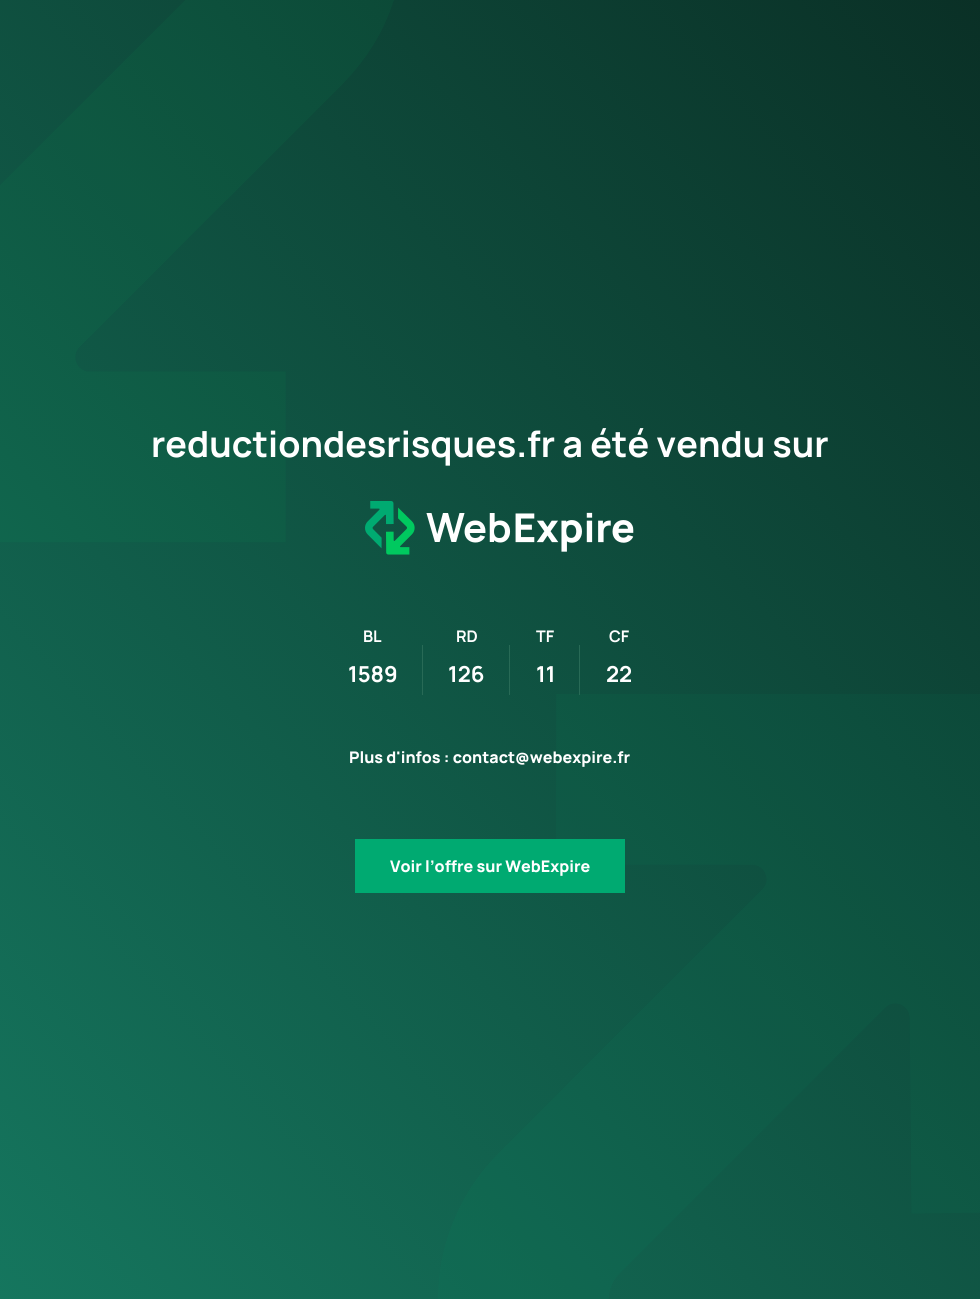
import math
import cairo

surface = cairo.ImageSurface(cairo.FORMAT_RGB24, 980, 1299)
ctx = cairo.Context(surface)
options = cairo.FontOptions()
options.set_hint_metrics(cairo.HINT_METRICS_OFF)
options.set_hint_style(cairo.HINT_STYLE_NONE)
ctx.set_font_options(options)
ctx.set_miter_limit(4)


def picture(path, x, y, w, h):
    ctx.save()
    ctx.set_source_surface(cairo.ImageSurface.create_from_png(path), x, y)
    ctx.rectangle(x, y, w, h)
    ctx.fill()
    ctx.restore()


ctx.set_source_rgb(1, 1, 1)
ctx.paint()
picture("img1.png", 0, 0, 980, 1299)
ctx.select_font_face("Manrope", cairo.FONT_SLANT_NORMAL, cairo.FONT_WEIGHT_BOLD)
ctx.set_font_size(36)
ctx.set_source_rgb(1, 1, 1)
ctx.move_to(151, 457)
ctx.show_text("reductiondesrisques.fr a été vendu sur")
picture("img2.png", 365, 501, 269, 54)
ctx.set_font_size(16)
ctx.move_to(363, 642)
ctx.show_text("BL")
ctx.set_font_size(22)
ctx.move_to(348, 682)
ctx.show_text("1589")
ctx.set_source_rgb(0.157, 0.416, 0.337)
ctx.rectangle(422, 645, 1, 50)
ctx.fill()
ctx.set_font_size(16)
ctx.set_source_rgb(1, 1, 1)
ctx.move_to(456, 642)
ctx.show_text("RD")
ctx.set_font_size(22)
ctx.move_to(448, 682)
ctx.show_text("126")
ctx.set_source_rgb(0.157, 0.416, 0.337)
ctx.rectangle(509, 645, 1, 50)
ctx.fill()
ctx.set_font_size(16)
ctx.set_source_rgb(1, 1, 1)
ctx.move_to(536, 642)
ctx.show_text("TF")
ctx.set_font_size(22)
ctx.move_to(536, 682)
ctx.show_text("11")
ctx.set_source_rgb(0.157, 0.416, 0.337)
ctx.rectangle(579, 645, 1, 50)
ctx.fill()
ctx.set_font_size(16)
ctx.set_source_rgb(1, 1, 1)
ctx.move_to(609, 642)
ctx.show_text("CF")
ctx.set_font_size(22)
ctx.move_to(606, 682)
ctx.show_text("22")
ctx.select_font_face("Manrope ExtraBold")
ctx.set_font_size(16)
ctx.move_to(349, 763)
ctx.show_text("Plus d'infos : contact@webexpire.fr")
ctx.set_source_rgb(0, 0.667, 0.443)
ctx.rectangle(355, 839, 270, 54)
ctx.fill()
ctx.set_source_rgb(1, 1, 1)
ctx.move_to(390, 872)
ctx.show_text("Voir l’offre sur WebExpire")
surface.write_to_png("page.png")
